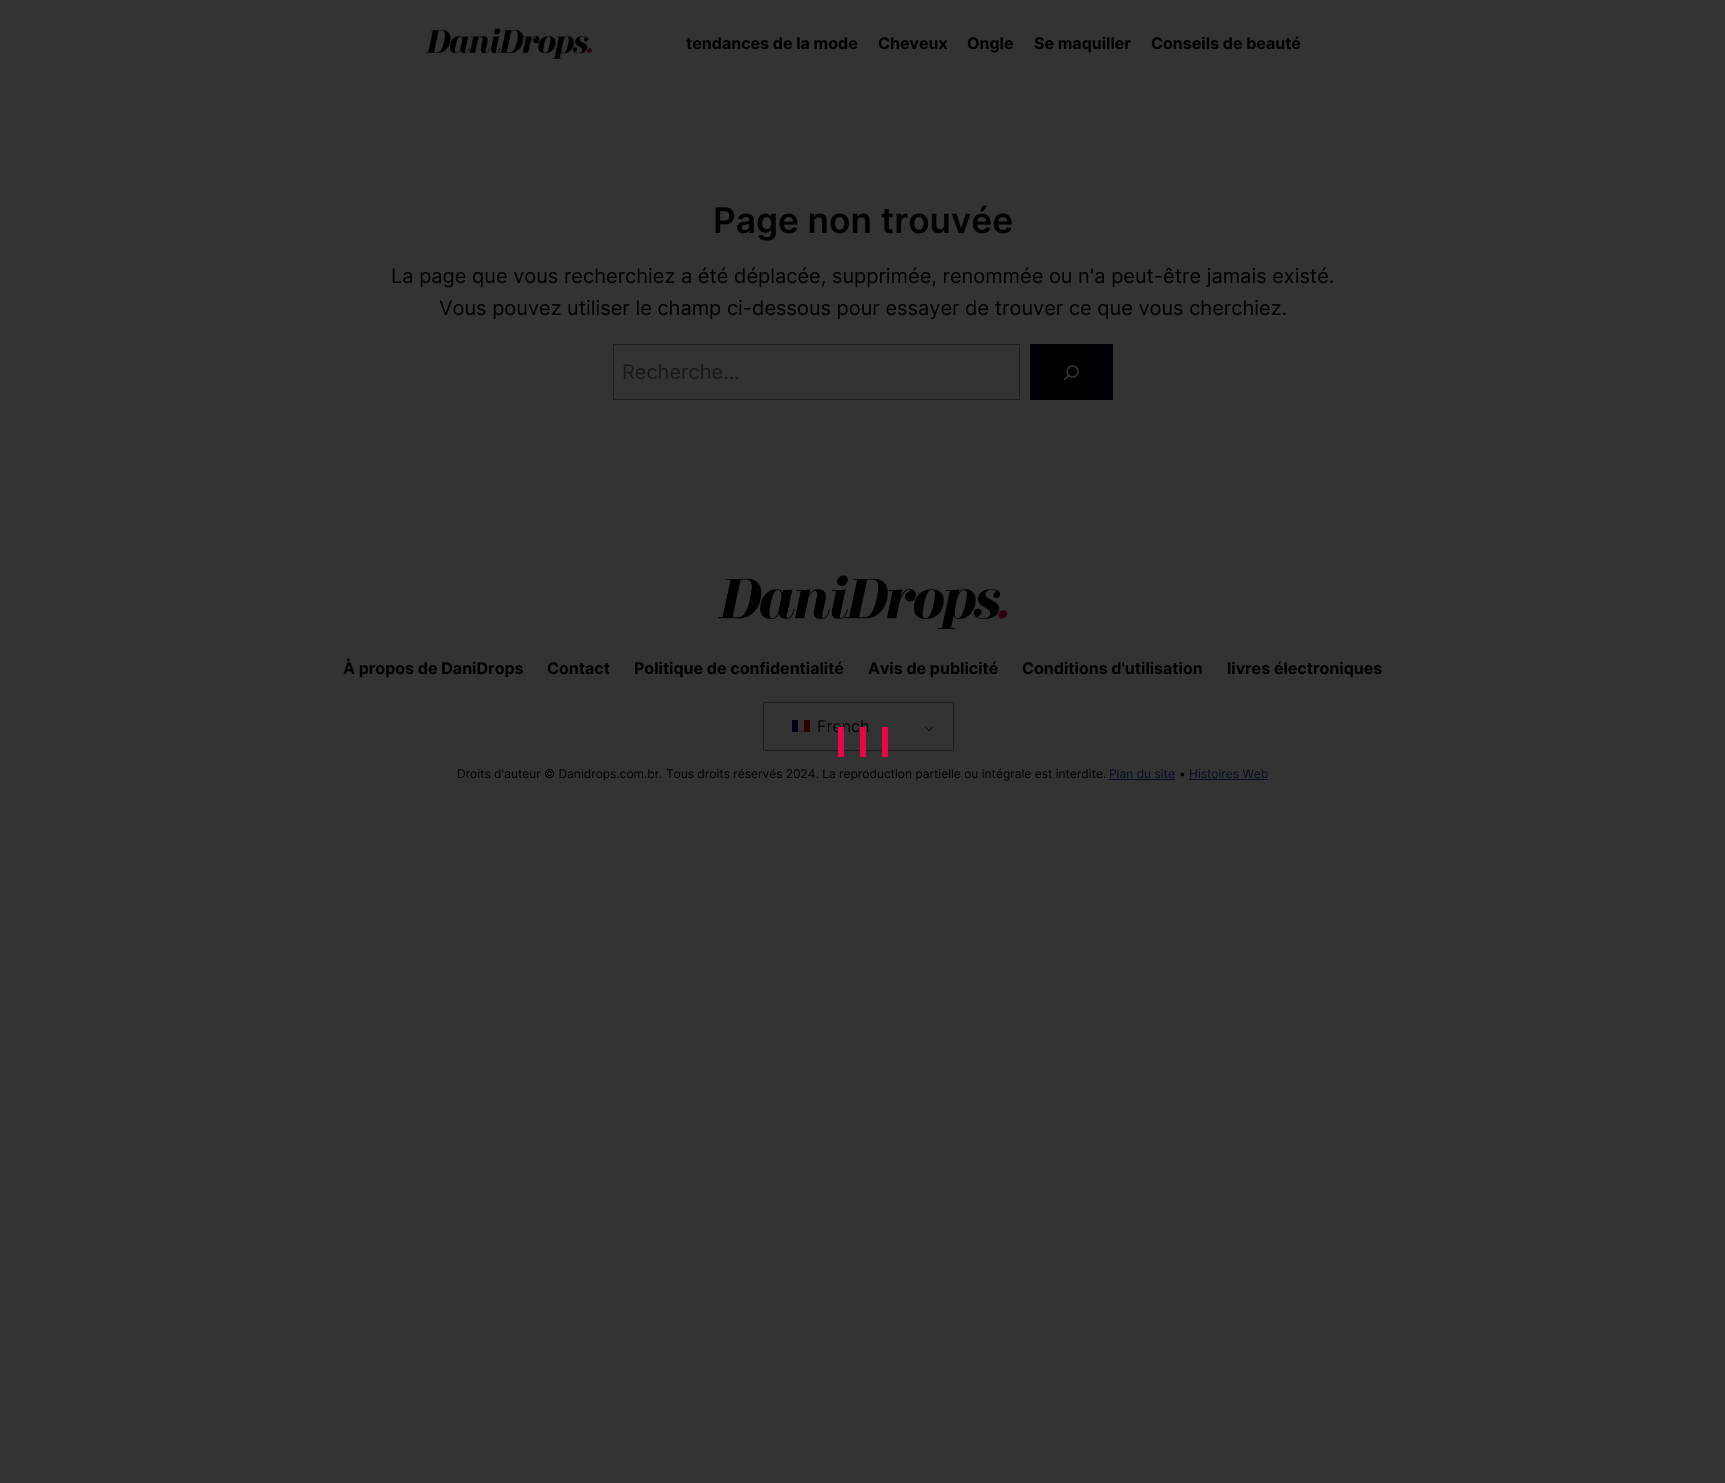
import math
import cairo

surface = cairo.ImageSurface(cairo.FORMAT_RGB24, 1725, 1483)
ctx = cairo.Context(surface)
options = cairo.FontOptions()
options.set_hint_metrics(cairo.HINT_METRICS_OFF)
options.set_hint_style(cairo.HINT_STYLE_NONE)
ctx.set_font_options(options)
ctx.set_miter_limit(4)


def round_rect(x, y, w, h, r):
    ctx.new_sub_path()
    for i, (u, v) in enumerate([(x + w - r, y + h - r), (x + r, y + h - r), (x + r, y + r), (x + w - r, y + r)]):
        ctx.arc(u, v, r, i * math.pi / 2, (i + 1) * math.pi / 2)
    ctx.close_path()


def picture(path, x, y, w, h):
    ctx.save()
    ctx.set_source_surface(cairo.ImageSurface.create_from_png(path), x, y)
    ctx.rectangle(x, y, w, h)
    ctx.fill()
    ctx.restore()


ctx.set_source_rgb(0.2, 0.2, 0.2)
ctx.paint()
picture("img1.png", 425, 28, 168, 31)
ctx.select_font_face("Inter", cairo.FONT_SLANT_NORMAL, cairo.FONT_WEIGHT_BOLD)
ctx.set_font_size(16)
ctx.set_source_rgb(0, 0, 0)
ctx.move_to(686, 49)
ctx.show_text("tendances de la mode")
ctx.move_to(878, 49)
ctx.show_text("Cheveux")
ctx.move_to(967, 49)
ctx.show_text("Ongle")
ctx.move_to(1034, 49)
ctx.show_text("Se maquiller")
ctx.move_to(1151, 49)
ctx.show_text("Conseils de beauté")
ctx.select_font_face("Inter SemiBold")
ctx.set_font_size(35.25)
ctx.move_to(713, 233)
ctx.show_text("Page non trouvée")
ctx.select_font_face("Inter")
ctx.set_font_size(20)
ctx.move_to(391, 283)
ctx.show_text("La page que vous recherchiez a été déplacée, supprimée, renommée ou n'a peut-être jamais existé.")
ctx.move_to(439, 315)
ctx.show_text("Vous pouvez utiliser le champ ci-dessous pour essayer de trouver ce que vous cherchiez.")
ctx.rectangle(613.5, 344.5, 406, 55)
ctx.set_source_rgb(0.118, 0.118, 0.118)
ctx.set_line_width(1)
ctx.stroke()
ctx.set_source_rgb(0.09, 0.09, 0.09)
ctx.move_to(622, 379)
ctx.show_text("Recherche...")
ctx.set_source_rgb(0, 0.004, 0.02)
ctx.rectangle(1030, 344, 83, 56)
ctx.fill()
picture("img2.png", 1063, 365, 16, 16)
picture("img3.png", 717, 575, 292, 54)
ctx.select_font_face("Inter", cairo.FONT_SLANT_NORMAL, cairo.FONT_WEIGHT_BOLD)
ctx.set_font_size(16)
ctx.set_source_rgb(0, 0, 0)
ctx.move_to(343, 674)
ctx.show_text("À propos de DaniDrops")
ctx.move_to(547, 674)
ctx.show_text("Contact")
ctx.move_to(634, 674)
ctx.show_text("Politique de confidentialité")
ctx.move_to(868, 674)
ctx.show_text("Avis de publicité")
ctx.move_to(1022, 674)
ctx.show_text("Conditions d'utilisation")
ctx.move_to(1227, 674)
ctx.show_text("livres électroniques")
picture("img4.png", 925, 726, 8, 5)
round_rect(763.5, 702.5, 190, 48, 1.5)
ctx.set_source_rgb(0.118, 0.118, 0.118)
ctx.stroke()
picture("img5.png", 792, 720, 18, 12)
ctx.select_font_face("Inter")
ctx.set_source_rgb(0.024, 0.024, 0.024)
ctx.move_to(817, 732)
ctx.show_text("French")
ctx.set_font_size(12)
ctx.set_source_rgb(0, 0, 0)
ctx.move_to(457, 778)
ctx.show_text("Droits d'auteur © Danidrops.com.br. Tous droits réservés 2024. La reproduction partielle ou intégrale est interdite.")
ctx.set_source_rgb(0.024, 0.051, 0.137)
ctx.move_to(1109, 778)
ctx.show_text("Plan du site")
ctx.rectangle(1109, 779, 66, 1)
ctx.fill()
ctx.set_source_rgb(0, 0, 0)
ctx.move_to(1179, 778)
ctx.show_text("•")
ctx.set_source_rgb(0.024, 0.051, 0.137)
ctx.move_to(1189, 778)
ctx.show_text("Histoires Web")
ctx.rectangle(1189, 779, 79, 1)
ctx.fill()
ctx.set_source_rgb(0.925, 0.016, 0.286)
ctx.rectangle(838, 727, 6, 30)
ctx.fill()
ctx.rectangle(860, 727, 6, 30)
ctx.fill()
ctx.rectangle(882, 727, 6, 30)
ctx.fill()
surface.write_to_png("page.png")
